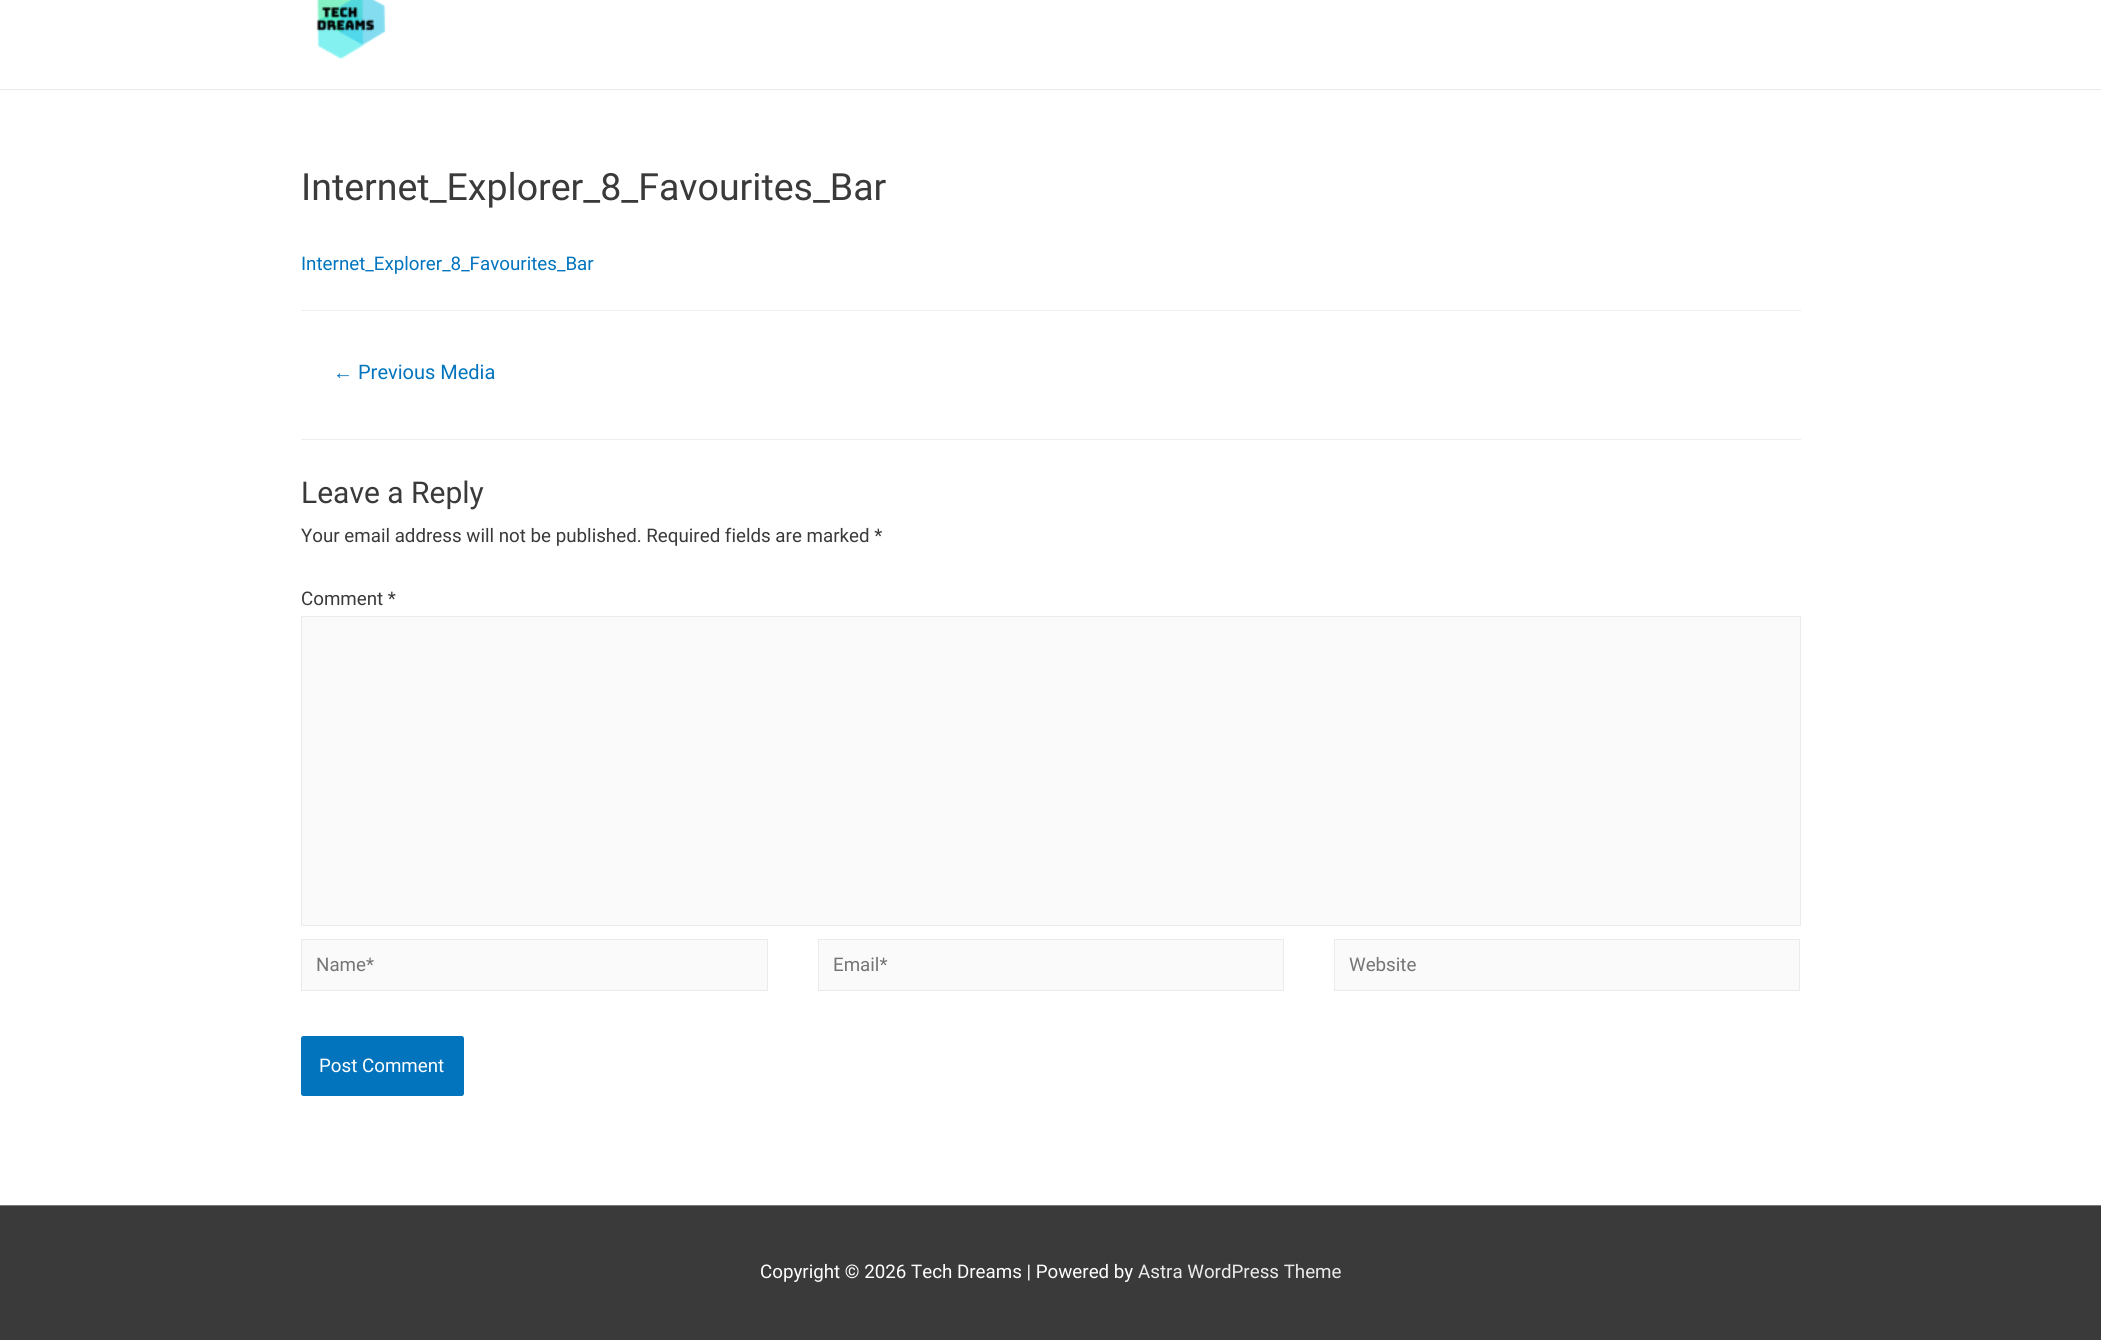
import math
import cairo

surface = cairo.ImageSurface(cairo.FORMAT_RGB24, 2101, 1340)
ctx = cairo.Context(surface)
options = cairo.FontOptions()
options.set_hint_metrics(cairo.HINT_METRICS_OFF)
options.set_hint_style(cairo.HINT_STYLE_NONE)
ctx.set_font_options(options)
ctx.set_miter_limit(4)


def round_rect(x, y, w, h, r):
    ctx.new_sub_path()
    for i, (u, v) in enumerate([(x + w - r, y + h - r), (x + r, y + h - r), (x + r, y + r), (x + w - r, y + r)]):
        ctx.arc(u, v, r, i * math.pi / 2, (i + 1) * math.pi / 2)
    ctx.close_path()


def picture(path, x, y, w, h):
    ctx.save()
    ctx.set_source_surface(cairo.ImageSurface.create_from_png(path), x, y)
    ctx.rectangle(x, y, w, h)
    ctx.fill()
    ctx.restore()


ctx.set_source_rgb(1, 1, 1)
ctx.paint()
ctx.set_source_rgb(0.918, 0.918, 0.918)
ctx.rectangle(0, 89, 2101, 1)
ctx.fill()
picture("img1.png", 316, 0, 70, 60)
ctx.select_font_face("Roboto")
ctx.set_font_size(37.5)
ctx.set_source_rgb(0.227, 0.227, 0.227)
ctx.move_to(301, 200)
ctx.show_text("Internet_Explorer_8_Favourites_Bar")
ctx.set_font_size(18.75)
ctx.set_source_rgb(0.008, 0.455, 0.745)
ctx.move_to(301, 270)
ctx.show_text("Internet_Explorer_8_Favourites_Bar")
ctx.set_source_rgb(0.933, 0.933, 0.933)
ctx.rectangle(301, 310, 1500, 1)
ctx.fill()
ctx.select_font_face("Liberation Sans")
ctx.set_font_size(20)
ctx.set_source_rgb(0.008, 0.455, 0.745)
ctx.move_to(333, 379)
ctx.show_text("←")
ctx.select_font_face("Roboto")
ctx.move_to(358, 379)
ctx.show_text("Previous Media")
ctx.set_source_rgb(0.933, 0.933, 0.933)
ctx.rectangle(301, 439, 1500, 1)
ctx.fill()
ctx.set_font_size(30)
ctx.set_source_rgb(0.227, 0.227, 0.227)
ctx.move_to(301, 503)
ctx.show_text("Leave a Reply")
ctx.set_font_size(18.75)
ctx.move_to(301, 542)
ctx.show_text("Your email address will not be published. Required fields are marked *")
ctx.move_to(301, 605)
ctx.show_text("Comment *")
ctx.set_source_rgb(0.98, 0.98, 0.98)
ctx.rectangle(301.5, 616.5, 1499, 309)
ctx.fill_preserve()
ctx.set_source_rgb(0.918, 0.918, 0.918)
ctx.set_line_width(1)
ctx.stroke()
ctx.set_source_rgb(0.98, 0.98, 0.98)
ctx.rectangle(301.5, 939.5, 466, 51)
ctx.fill_preserve()
ctx.set_source_rgb(0.918, 0.918, 0.918)
ctx.stroke()
ctx.set_source_rgb(0.459, 0.459, 0.459)
ctx.move_to(316, 971)
ctx.show_text("Name*")
ctx.set_source_rgb(0.98, 0.98, 0.98)
ctx.rectangle(818.5, 939.5, 465, 51)
ctx.fill_preserve()
ctx.set_source_rgb(0.918, 0.918, 0.918)
ctx.stroke()
ctx.set_source_rgb(0.459, 0.459, 0.459)
ctx.move_to(833, 971)
ctx.show_text("Email*")
ctx.set_source_rgb(0.98, 0.98, 0.98)
ctx.rectangle(1334.5, 939.5, 465, 51)
ctx.fill_preserve()
ctx.set_source_rgb(0.918, 0.918, 0.918)
ctx.stroke()
ctx.set_source_rgb(0.459, 0.459, 0.459)
ctx.move_to(1349, 971)
ctx.show_text("Website")
ctx.set_source_rgb(0.008, 0.455, 0.745)
round_rect(301, 1036, 163, 60, 2.5)
ctx.fill()
ctx.set_source_rgb(1, 1, 1)
ctx.move_to(319, 1072)
ctx.show_text("Post Comment")
ctx.set_source_rgb(0.478, 0.478, 0.478)
ctx.rectangle(0, 1205, 2101, 1)
ctx.fill()
ctx.set_source_rgb(0.227, 0.227, 0.227)
ctx.rectangle(0, 1206, 2101, 134)
ctx.fill()
ctx.set_source_rgb(1, 1, 1)
ctx.move_to(760, 1278)
ctx.show_text("Copyright © 2026 Tech Dreams | Powered by")
ctx.set_source_rgb(0.918, 0.918, 0.918)
ctx.move_to(1138, 1278)
ctx.show_text("Astra WordPress Theme")
surface.write_to_png("page.png")
